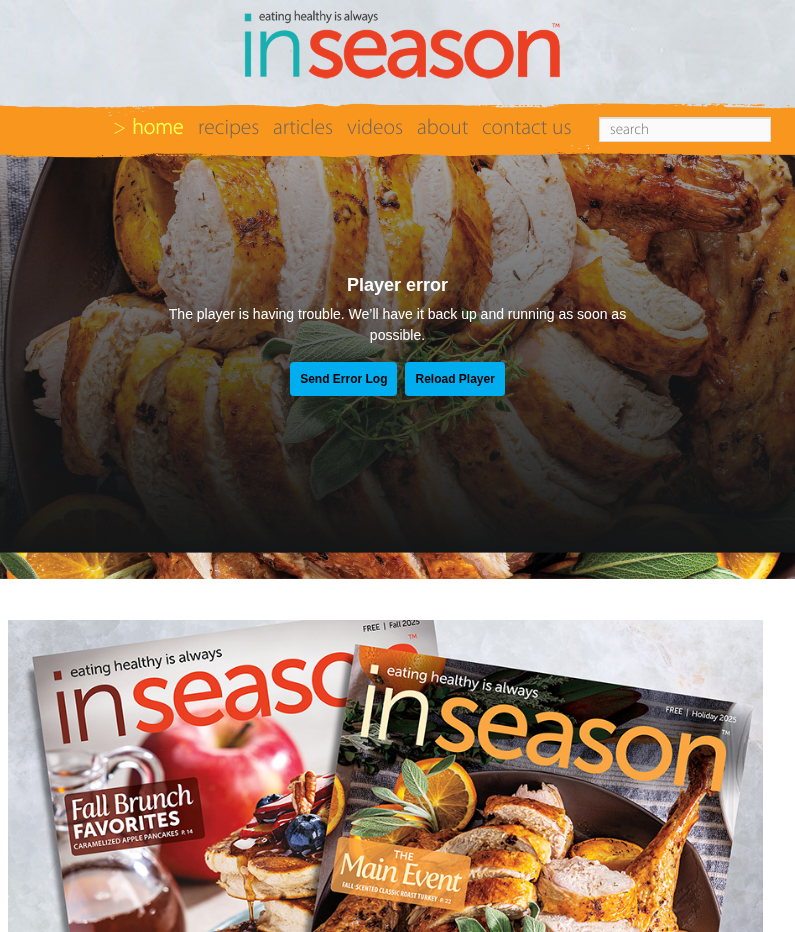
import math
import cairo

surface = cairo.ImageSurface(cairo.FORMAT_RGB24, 795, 932)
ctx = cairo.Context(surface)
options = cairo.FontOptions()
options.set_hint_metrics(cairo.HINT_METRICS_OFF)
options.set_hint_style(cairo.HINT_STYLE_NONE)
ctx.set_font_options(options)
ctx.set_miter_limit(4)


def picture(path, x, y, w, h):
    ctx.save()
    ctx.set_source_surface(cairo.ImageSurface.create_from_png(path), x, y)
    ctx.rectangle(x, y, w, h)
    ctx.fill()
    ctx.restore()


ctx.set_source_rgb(1, 1, 1)
ctx.paint()
picture("img1.png", 0, 0, 795, 116)
picture("img2.png", 244, 10, 316, 69)
picture("img4.png", 0, 149, 795, 430)
picture("img5.png", 0, 149, 795, 404)
picture("img3.png", 0, 103, 795, 55)
ctx.select_font_face("Myriad Light")
ctx.set_font_size(20)
ctx.set_source_rgb(1, 1, 0.306)
ctx.move_to(113, 134)
ctx.show_text(">")
ctx.select_font_face("Myriad", cairo.FONT_SLANT_NORMAL, cairo.FONT_WEIGHT_BOLD)
ctx.move_to(132, 134)
ctx.show_text("home")
ctx.select_font_face("Myriad Light")
ctx.set_source_rgb(0.42, 0.388, 0.365)
ctx.move_to(198, 134)
ctx.show_text("recipes")
ctx.move_to(273, 134)
ctx.show_text("articles")
ctx.move_to(347, 134)
ctx.show_text("videos")
ctx.move_to(417, 134)
ctx.show_text("about")
ctx.move_to(482, 134)
ctx.show_text("contact us")
ctx.set_source_rgb(0.98, 0.98, 0.98)
ctx.rectangle(600, 119, 170, 22)
ctx.fill()
ctx.set_source_rgb(0.882, 0.882, 0.882)
ctx.rectangle(600, 118, 170, 1)
ctx.fill()
ctx.rectangle(599.5, 117.5, 171, 24)
ctx.set_source_rgb(0.867, 0.867, 0.867)
ctx.set_line_width(1)
ctx.stroke()
ctx.set_font_size(14)
ctx.set_source_rgb(0.459, 0.459, 0.459)
ctx.move_to(610, 134)
ctx.show_text("search")
picture("img6.png", 8, 620, 755, 312)
surface.write_to_png("page.png")
